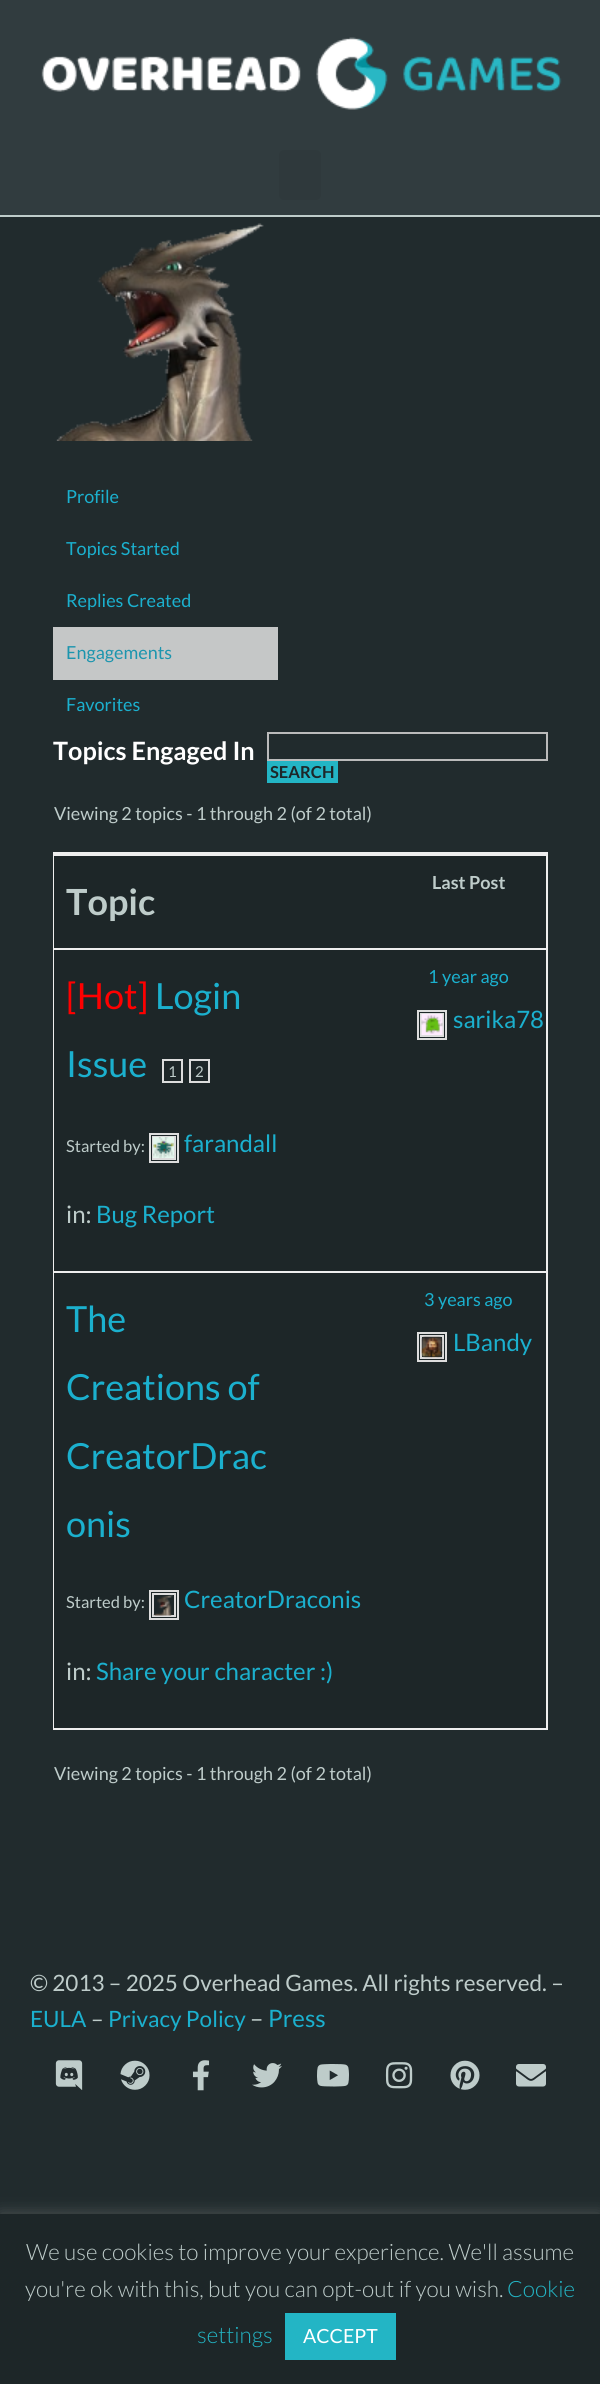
import math
import cairo

surface = cairo.ImageSurface(cairo.FORMAT_RGB24, 600, 2384)
ctx = cairo.Context(surface)
options = cairo.FontOptions()
options.set_hint_metrics(cairo.HINT_METRICS_OFF)
options.set_hint_style(cairo.HINT_STYLE_NONE)
ctx.set_font_options(options)
ctx.set_miter_limit(4)


def round_rect(x, y, w, h, r):
    ctx.new_sub_path()
    for i, (u, v) in enumerate([(x + w - r, y + h - r), (x + r, y + h - r), (x + r, y + r), (x + w - r, y + r)]):
        ctx.arc(u, v, r, i * math.pi / 2, (i + 1) * math.pi / 2)
    ctx.close_path()


def shadow(x, y, w, h, r, blur, alpha):
    ctx.push_group_with_content(cairo.CONTENT_ALPHA)
    ctx.set_operator(cairo.OPERATOR_SOURCE)
    for i in range(15, -16, -2):
        e = blur * i / 6
        if min(w, h) + 2 * e > 0:
            ctx.set_source_rgba(0, 0, 0, alpha * math.erfc((i - 1) / 8.5) / 2)
            round_rect(x - e, y - e, w + 2 * e, h + 2 * e, max(0, min(r + e + blur * .6, min(w, h) / 2 + e)))
            ctx.fill()
    ctx.mask(ctx.pop_group())


def picture(path, x, y, w, h):
    ctx.save()
    ctx.set_source_surface(cairo.ImageSurface.create_from_png(path), x, y)
    ctx.rectangle(x, y, w, h)
    ctx.fill()
    ctx.restore()


ctx.set_source_rgb(0.129, 0.169, 0.176)
ctx.paint()
ctx.set_source_rgb(0.192, 0.235, 0.247)
ctx.rectangle(0, 0, 600, 215)
ctx.fill()
ctx.set_source_rgb(0.745, 0.8, 0.792)
ctx.rectangle(0, 215, 600, 2)
ctx.fill()
picture("img1.png", 41, 37, 521, 73)
ctx.set_source_rgb(0.184, 0.224, 0.235)
round_rect(279, 150, 42, 50, 5)
ctx.fill()
picture("img2.png", 56, 223, 208, 218)
ctx.select_font_face("Lato")
ctx.set_font_size(18)
ctx.set_source_rgb(0.106, 0.69, 0.808)
ctx.move_to(66, 503)
ctx.show_text("Profile")
ctx.move_to(66, 555)
ctx.show_text("Topics Started")
ctx.move_to(66, 607)
ctx.show_text("Replies Created")
ctx.set_source_rgb(0.773, 0.78, 0.78)
ctx.rectangle(53, 627, 225, 53)
ctx.fill()
ctx.set_source_rgb(0.11, 0.584, 0.682)
ctx.move_to(66, 659)
ctx.show_text("Engagements")
ctx.set_source_rgb(0.106, 0.69, 0.808)
ctx.move_to(66, 711)
ctx.show_text("Favorites")
ctx.save()
ctx.rectangle(53, 216, 495, 1596)
ctx.clip()
ctx.select_font_face("Lato", cairo.FONT_SLANT_NORMAL, cairo.FONT_WEIGHT_BOLD)
ctx.set_font_size(25.25)
ctx.set_source_rgb(1, 1, 1)
ctx.move_to(53, 760)
ctx.show_text("Topics Engaged In")
ctx.restore()
ctx.rectangle(268, 733, 279, 27)
ctx.set_source_rgb(0.733, 0.733, 0.733)
ctx.stroke()
ctx.set_source_rgb(0.137, 0.71, 0.773)
ctx.rectangle(267, 761, 71, 22)
ctx.fill()
ctx.select_font_face("Lato", cairo.FONT_SLANT_NORMAL, cairo.FONT_WEIGHT_BOLD)
ctx.set_font_size(16.5)
ctx.set_source_rgb(0.114, 0.149, 0.157)
ctx.move_to(270, 778)
ctx.show_text("SEARCH")
ctx.select_font_face("Lato")
ctx.set_font_size(18)
ctx.set_source_rgb(0.745, 0.8, 0.792)
ctx.move_to(54, 820)
ctx.show_text("Viewing 2 topics - 1 through 2 (of 2 total)")
ctx.rectangle(54, 853, 493, 876)
ctx.set_source_rgb(0.933, 0.933, 0.933)
ctx.stroke()
ctx.set_source_rgb(0.114, 0.149, 0.157)
ctx.rectangle(54, 856, 492, 92)
ctx.fill()
ctx.set_source_rgb(0.933, 0.933, 0.933)
ctx.rectangle(54, 854, 492, 2)
ctx.fill()
ctx.select_font_face("Lato", cairo.FONT_SLANT_NORMAL, cairo.FONT_WEIGHT_BOLD)
ctx.set_source_rgb(0.745, 0.8, 0.792)
ctx.move_to(432, 889)
ctx.show_text("Last Post")
ctx.set_font_size(36)
ctx.move_to(66, 915)
ctx.show_text("Topic")
ctx.set_source_rgb(0.114, 0.149, 0.157)
ctx.rectangle(54, 950, 492, 321)
ctx.fill()
ctx.set_source_rgb(0.933, 0.933, 0.933)
ctx.rectangle(54, 948, 492, 2)
ctx.fill()
ctx.select_font_face("Lato")
ctx.set_source_rgb(1, 0, 0)
ctx.move_to(66, 1009)
ctx.show_text("[Hot]")
ctx.set_source_rgb(0.106, 0.69, 0.808)
ctx.move_to(155, 1009)
ctx.show_text("Login")
ctx.move_to(66, 1077)
ctx.show_text("Issue")
ctx.rectangle(163, 1060, 19, 22)
ctx.set_source_rgb(0.867, 0.867, 0.867)
ctx.stroke()
ctx.set_font_size(15)
ctx.set_source_rgb(0.745, 0.8, 0.792)
ctx.move_to(168, 1077)
ctx.show_text("1")
ctx.rectangle(190, 1060, 19, 22)
ctx.set_source_rgb(0.867, 0.867, 0.867)
ctx.stroke()
ctx.set_source_rgb(0.745, 0.8, 0.792)
ctx.move_to(195, 1077)
ctx.show_text("2")
ctx.set_font_size(16.5)
ctx.move_to(66, 1152)
ctx.show_text("Started by:")
ctx.rectangle(150, 1134, 28, 28)
ctx.set_source_rgb(0.867, 0.867, 0.867)
ctx.stroke()
ctx.rectangle(153, 1137, 22, 22)
ctx.stroke()
picture("img3.png", 153, 1137, 21, 21)
ctx.set_font_size(24)
ctx.set_source_rgb(0.106, 0.69, 0.808)
ctx.move_to(184, 1152)
ctx.show_text("farandall")
ctx.set_source_rgb(0.745, 0.8, 0.792)
ctx.move_to(66, 1223)
ctx.show_text("in:")
ctx.set_source_rgb(0.106, 0.69, 0.808)
ctx.move_to(96, 1223)
ctx.show_text("Bug Report")
ctx.set_font_size(18)
ctx.move_to(428, 983)
ctx.show_text("1 year ago")
ctx.rectangle(418, 1011, 28, 28)
ctx.set_source_rgb(0.867, 0.867, 0.867)
ctx.stroke()
ctx.rectangle(421, 1014, 22, 22)
ctx.stroke()
picture("img4.png", 421, 1014, 22, 21)
ctx.set_font_size(24)
ctx.set_source_rgb(0.106, 0.69, 0.808)
ctx.move_to(453, 1028)
ctx.show_text("sarika78")
ctx.set_source_rgb(0.114, 0.149, 0.157)
ctx.rectangle(54, 1273, 492, 455)
ctx.fill()
ctx.set_source_rgb(0.933, 0.933, 0.933)
ctx.rectangle(54, 1271, 492, 2)
ctx.fill()
ctx.set_font_size(36)
ctx.set_source_rgb(0.106, 0.69, 0.808)
ctx.move_to(66, 1332)
ctx.show_text("The")
ctx.move_to(66, 1400)
ctx.show_text("Creations of")
ctx.move_to(66, 1469)
ctx.show_text("CreatorDrac")
ctx.move_to(66, 1537)
ctx.show_text("onis")
ctx.set_font_size(16.5)
ctx.set_source_rgb(0.745, 0.8, 0.792)
ctx.move_to(66, 1608)
ctx.show_text("Started by:")
ctx.rectangle(150, 1591, 28, 28)
ctx.set_source_rgb(0.867, 0.867, 0.867)
ctx.stroke()
ctx.rectangle(153, 1594, 22, 22)
ctx.stroke()
picture("img5.png", 153, 1595, 20, 21)
ctx.set_font_size(24)
ctx.set_source_rgb(0.106, 0.69, 0.808)
ctx.move_to(184, 1608)
ctx.show_text("CreatorDraconis")
ctx.set_source_rgb(0.745, 0.8, 0.792)
ctx.move_to(66, 1680)
ctx.show_text("in:")
ctx.set_source_rgb(0.106, 0.69, 0.808)
ctx.move_to(96, 1680)
ctx.show_text("Share your character :)")
ctx.set_font_size(18)
ctx.move_to(424, 1306)
ctx.show_text("3 years ago")
ctx.rectangle(418, 1333, 28, 28)
ctx.set_source_rgb(0.867, 0.867, 0.867)
ctx.stroke()
ctx.rectangle(421, 1336, 22, 22)
ctx.stroke()
picture("img6.png", 421, 1336, 22, 22)
ctx.set_font_size(24)
ctx.set_source_rgb(0.106, 0.69, 0.808)
ctx.move_to(453, 1351)
ctx.show_text("LBandy")
ctx.set_font_size(18)
ctx.set_source_rgb(0.745, 0.8, 0.792)
ctx.move_to(54, 1780)
ctx.show_text("Viewing 2 topics - 1 through 2 (of 2 total)")
ctx.set_font_size(22.5)
ctx.move_to(30, 1991)
ctx.show_text("© 2013 – 2025 Overhead Games. All rights reserved. –")
ctx.set_source_rgb(0.106, 0.69, 0.808)
ctx.move_to(30, 2027)
ctx.show_text("EULA")
ctx.set_source_rgb(0.745, 0.8, 0.792)
ctx.move_to(91, 2027)
ctx.show_text("–")
ctx.set_source_rgb(0.106, 0.69, 0.808)
ctx.move_to(108, 2027)
ctx.show_text("Privacy Policy")
ctx.set_font_size(24)
ctx.set_source_rgb(0.745, 0.8, 0.792)
ctx.move_to(250, 2027)
ctx.show_text("–")
ctx.set_source_rgb(0.106, 0.69, 0.808)
ctx.move_to(268, 2027)
ctx.show_text("Press")
picture("img7.png", 55, 2060, 28, 30)
picture("img8.png", 120, 2060, 30, 30)
picture("img9.png", 192, 2060, 18, 31)
picture("img10.png", 252, 2063, 30, 25)
picture("img11.png", 317, 2064, 32, 23)
picture("img12.png", 385, 2062, 28, 27)
picture("img13.png", 450, 2060, 30, 30)
picture("img14.png", 516, 2064, 30, 23)
ctx.set_source_rgb(0.675, 0.671, 0.671)
shadow(0, 2213, 600, 171, 0, 7.5, 0.3)
ctx.set_source_rgb(0.114, 0.149, 0.157)
ctx.rectangle(0, 2214, 600, 170)
ctx.fill()
ctx.select_font_face("Lato Light")
ctx.set_font_size(22.5)
ctx.set_source_rgb(0.745, 0.8, 0.792)
ctx.move_to(26, 2260)
ctx.show_text("We use cookies to improve your experience. We'll assume")
ctx.move_to(25, 2297)
ctx.show_text("you're ok with this, but you can opt-out if you wish.")
ctx.set_source_rgb(0.137, 0.71, 0.773)
ctx.move_to(507, 2297)
ctx.show_text("Cookie")
ctx.move_to(197, 2343)
ctx.show_text("settings")
ctx.rectangle(285, 2313, 111, 47)
ctx.fill()
ctx.select_font_face("Lato")
ctx.set_font_size(19.5)
ctx.set_source_rgb(1, 1, 1)
ctx.move_to(303, 2343)
ctx.show_text("ACCEPT")
surface.write_to_png("page.png")
